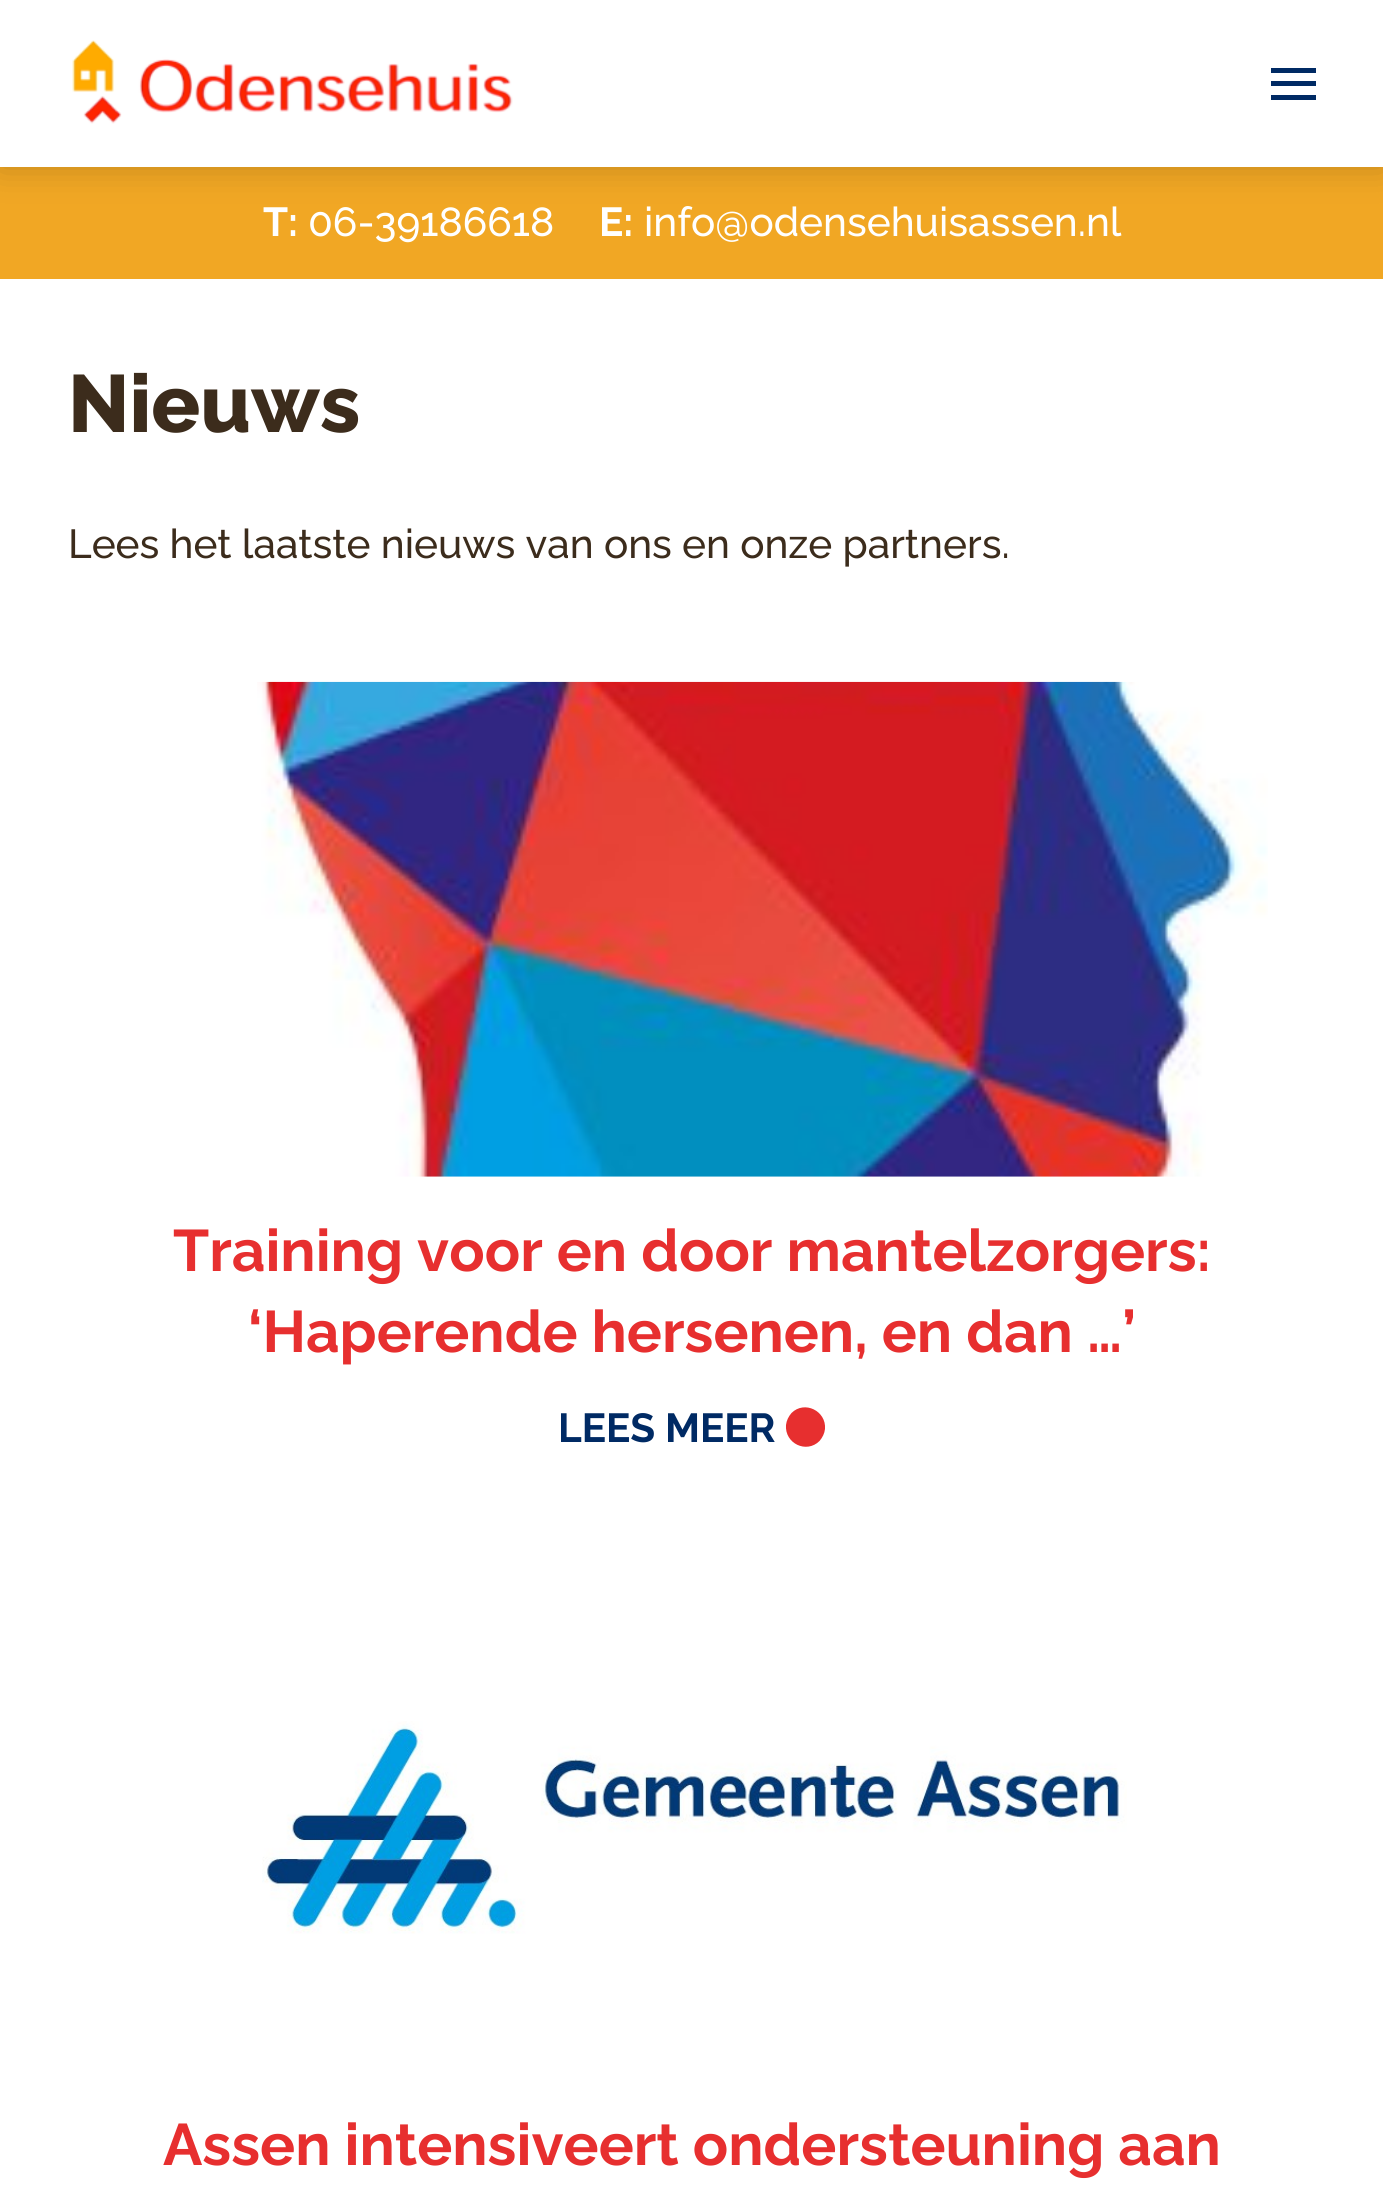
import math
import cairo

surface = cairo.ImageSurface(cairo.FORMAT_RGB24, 1383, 2200)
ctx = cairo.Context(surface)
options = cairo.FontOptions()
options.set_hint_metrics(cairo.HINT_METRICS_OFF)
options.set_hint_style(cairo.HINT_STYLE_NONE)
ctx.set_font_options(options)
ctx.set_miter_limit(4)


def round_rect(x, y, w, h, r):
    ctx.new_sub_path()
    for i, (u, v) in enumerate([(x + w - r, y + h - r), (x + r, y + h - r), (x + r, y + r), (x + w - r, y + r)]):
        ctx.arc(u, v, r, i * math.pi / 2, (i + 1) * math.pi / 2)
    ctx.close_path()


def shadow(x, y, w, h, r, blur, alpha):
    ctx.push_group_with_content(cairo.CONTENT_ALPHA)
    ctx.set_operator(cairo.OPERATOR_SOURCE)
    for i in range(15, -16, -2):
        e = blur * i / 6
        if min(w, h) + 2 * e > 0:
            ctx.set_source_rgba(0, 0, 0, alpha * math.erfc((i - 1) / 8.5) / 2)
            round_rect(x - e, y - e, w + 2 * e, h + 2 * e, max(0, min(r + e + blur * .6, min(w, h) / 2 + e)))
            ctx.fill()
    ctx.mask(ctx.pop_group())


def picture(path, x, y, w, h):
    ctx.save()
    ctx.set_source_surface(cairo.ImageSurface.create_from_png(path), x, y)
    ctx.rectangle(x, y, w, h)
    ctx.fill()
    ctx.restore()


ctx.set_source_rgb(1, 1, 1)
ctx.paint()
ctx.set_source_rgb(0.945, 0.655, 0.141)
ctx.rectangle(0, 167, 1383, 112)
ctx.fill()
ctx.set_source_rgb(0, 0, 0)
shadow(0, 0, 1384, 167, 0, 17, 0.2)
ctx.set_source_rgb(1, 1, 1)
ctx.rectangle(0, 0, 1383, 167)
ctx.fill()
picture("img1.png", 72, 40, 441, 84)
ctx.set_source_rgb(0, 0.165, 0.392)
ctx.rectangle(1271, 68, 45, 5)
ctx.fill()
ctx.rectangle(1271, 81, 45, 5)
ctx.fill()
ctx.rectangle(1271, 95, 45, 5)
ctx.fill()
ctx.select_font_face("Raleway", cairo.FONT_SLANT_NORMAL, cairo.FONT_WEIGHT_BOLD)
ctx.set_font_size(40.5)
ctx.set_source_rgb(1, 1, 1)
ctx.move_to(263, 236)
ctx.show_text("T:")
ctx.select_font_face("Raleway Medium")
ctx.move_to(308, 236)
ctx.show_text("06-39186618")
ctx.select_font_face("Raleway", cairo.FONT_SLANT_NORMAL, cairo.FONT_WEIGHT_BOLD)
ctx.move_to(599, 236)
ctx.show_text("E:")
ctx.select_font_face("Raleway Medium")
ctx.move_to(644, 236)
ctx.show_text("info@odensehuisassen.nl")
ctx.select_font_face("Raleway ExtraBold")
ctx.set_font_size(81)
ctx.set_source_rgb(0.235, 0.173, 0.11)
ctx.move_to(68, 432)
ctx.show_text("Nieuws")
ctx.select_font_face("Raleway Medium")
ctx.set_font_size(40.5)
ctx.move_to(68, 558)
ctx.show_text("Lees het laatste nieuws van ons en onze partners.")
picture("img2.png", 257, 681, 1011, 496)
ctx.select_font_face("Raleway", cairo.FONT_SLANT_NORMAL, cairo.FONT_WEIGHT_BOLD)
ctx.set_font_size(58.5)
ctx.set_source_rgb(0.906, 0.184, 0.184)
ctx.move_to(173, 1271)
ctx.show_text("Training voor en door mantelzorgers:")
ctx.move_to(248, 1352)
ctx.show_text("‘Haperende hersenen, en dan …’")
ctx.set_font_size(40.5)
ctx.set_source_rgb(0, 0.165, 0.392)
ctx.move_to(558, 1442)
ctx.show_text("LEES MEER")
ctx.set_source_rgb(0.906, 0.184, 0.184)
ctx.new_path()
ctx.move_to(791.5, 1413)
ctx.curve_to(804.5, 1400, 826.5, 1411, 825, 1429)
ctx.curve_to(824.5, 1433.5, 822.5, 1437.5, 819.5, 1441)
ctx.curve_to(806.5, 1454, 784.5, 1443.5, 786, 1425)
ctx.curve_to(786.5, 1420.5, 788.5, 1416.5, 791.5, 1413)
ctx.close_path()
ctx.fill()
picture("img3.png", 262, 1721, 865, 213)
ctx.set_font_size(58.5)
ctx.move_to(163, 2165)
ctx.show_text("Assen intensiveert ondersteuning aan")
surface.write_to_png("page.png")
